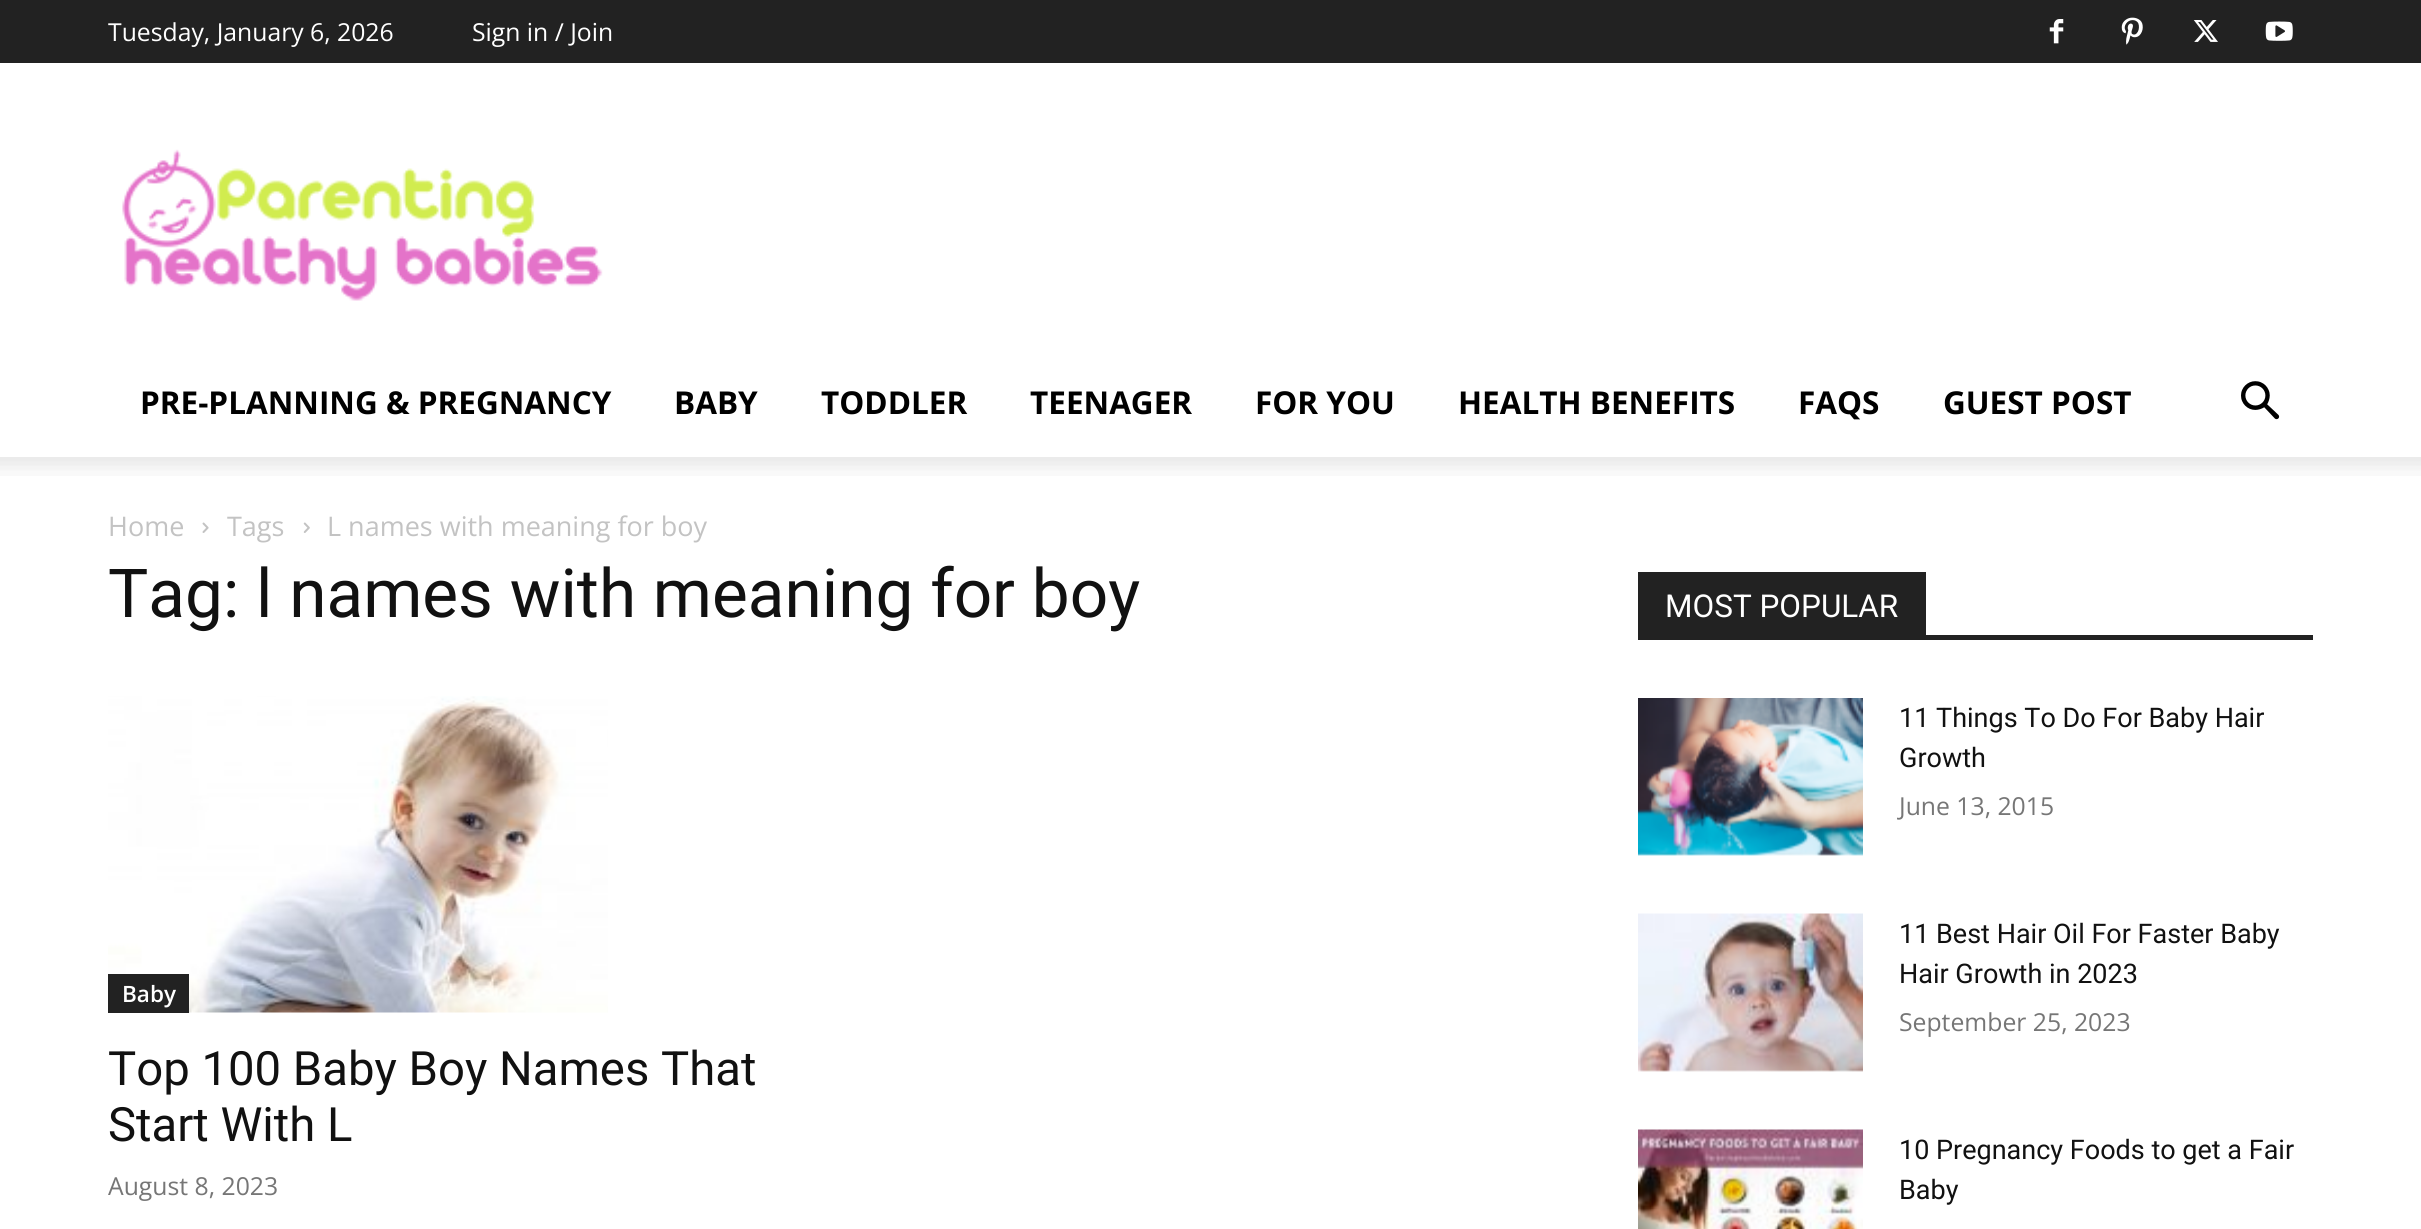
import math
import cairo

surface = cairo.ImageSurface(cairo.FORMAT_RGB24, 2421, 1229)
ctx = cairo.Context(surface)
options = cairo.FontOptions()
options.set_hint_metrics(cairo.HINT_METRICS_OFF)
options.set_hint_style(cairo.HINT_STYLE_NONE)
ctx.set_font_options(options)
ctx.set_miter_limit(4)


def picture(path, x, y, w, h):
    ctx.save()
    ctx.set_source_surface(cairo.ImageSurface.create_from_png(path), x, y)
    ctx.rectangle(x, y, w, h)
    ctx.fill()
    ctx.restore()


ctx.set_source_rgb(1, 1, 1)
ctx.paint()
ctx.set_source_rgb(0.133, 0.133, 0.133)
ctx.rectangle(0, 0, 2421, 63)
ctx.fill()
ctx.select_font_face("Open Sans")
ctx.set_font_size(24.75)
ctx.set_source_rgb(1, 1, 1)
ctx.move_to(108, 41)
ctx.show_text("Tuesday, January 6, 2026")
ctx.move_to(472, 41)
ctx.show_text("Sign in / Join")
picture("img1.png", 2049, 19, 15, 25)
picture("img2.png", 2121, 17, 22, 28)
picture("img3.png", 2193, 20, 25, 22)
picture("img4.png", 2265, 21, 28, 20)
picture("img5.png", 122, 149, 481, 152)
ctx.select_font_face("Open Sans", cairo.FONT_SLANT_NORMAL, cairo.FONT_WEIGHT_BOLD)
ctx.set_font_size(31.5)
ctx.set_source_rgb(0, 0, 0)
ctx.move_to(140, 414)
ctx.show_text("PRE-PLANNING & PREGNANCY")
ctx.move_to(674, 414)
ctx.show_text("BABY")
ctx.move_to(821, 414)
ctx.show_text("TODDLER")
ctx.move_to(1030, 414)
ctx.show_text("TEENAGER")
ctx.move_to(1255, 414)
ctx.show_text("FOR YOU")
ctx.move_to(1458, 414)
ctx.show_text("HEALTH BENEFITS")
ctx.move_to(1798, 414)
ctx.show_text("FAQS")
ctx.move_to(1943, 414)
ctx.show_text("GUEST POST")
picture("img6.png", 2241, 381, 39, 39)
picture("img7.png", 0, 457, 2421, 19)
ctx.select_font_face("Open Sans")
ctx.set_font_size(27)
ctx.set_source_rgb(0.765, 0.765, 0.765)
ctx.move_to(108, 536)
ctx.show_text("Home")
picture("img8.png", 202, 522, 7, 11)
ctx.move_to(227, 536)
ctx.show_text("Tags")
picture("img9.png", 303, 522, 7, 11)
ctx.move_to(327, 536)
ctx.show_text("L names with meaning for boy")
ctx.select_font_face("Roboto")
ctx.set_font_size(67.5)
ctx.set_source_rgb(0.067, 0.067, 0.067)
ctx.move_to(108, 617)
ctx.show_text("Tag: l names with meaning for boy")
picture("img10.png", 108, 696, 500, 317)
ctx.set_source_rgb(0.133, 0.133, 0.133)
ctx.rectangle(108, 974, 81, 39)
ctx.fill()
ctx.select_font_face("Open Sans SemiBold")
ctx.set_font_size(22.5)
ctx.set_source_rgb(1, 1, 1)
ctx.move_to(122, 1002)
ctx.show_text("Baby")
ctx.select_font_face("Roboto")
ctx.set_font_size(47.25)
ctx.set_source_rgb(0.067, 0.067, 0.067)
ctx.move_to(108, 1085)
ctx.show_text("Top 100 Baby Boy Names That")
ctx.move_to(108, 1141)
ctx.show_text("Start With L")
ctx.select_font_face("Open Sans")
ctx.set_font_size(24.75)
ctx.set_source_rgb(0.463, 0.463, 0.463)
ctx.move_to(108, 1195)
ctx.show_text("August 8, 2023")
ctx.set_source_rgb(0.133, 0.133, 0.133)
ctx.rectangle(1638, 635, 675, 5)
ctx.fill()
ctx.rectangle(1638, 572, 288, 63)
ctx.fill()
ctx.select_font_face("Roboto")
ctx.set_font_size(31.5)
ctx.set_source_rgb(1, 1, 1)
ctx.move_to(1665, 617)
ctx.show_text("MOST POPULAR")
picture("img11.png", 1638, 698, 225, 158)
ctx.set_font_size(27)
ctx.set_source_rgb(0.067, 0.067, 0.067)
ctx.move_to(1899, 727)
ctx.show_text("11 Things To Do For Baby Hair")
ctx.move_to(1899, 767)
ctx.show_text("Growth")
ctx.select_font_face("Open Sans")
ctx.set_font_size(24.75)
ctx.set_source_rgb(0.463, 0.463, 0.463)
ctx.move_to(1899, 815)
ctx.show_text("June 13, 2015")
picture("img12.png", 1638, 913, 225, 159)
ctx.select_font_face("Roboto")
ctx.set_font_size(27)
ctx.set_source_rgb(0.067, 0.067, 0.067)
ctx.move_to(1899, 943)
ctx.show_text("11 Best Hair Oil For Faster Baby")
ctx.move_to(1899, 983)
ctx.show_text("Hair Growth in 2023")
ctx.select_font_face("Open Sans")
ctx.set_font_size(24.75)
ctx.set_source_rgb(0.463, 0.463, 0.463)
ctx.move_to(1899, 1031)
ctx.show_text("September 25, 2023")
picture("img13.png", 1638, 1129, 225, 100)
ctx.select_font_face("Roboto")
ctx.set_font_size(27)
ctx.set_source_rgb(0.067, 0.067, 0.067)
ctx.move_to(1899, 1159)
ctx.show_text("10 Pregnancy Foods to get a Fair")
ctx.move_to(1899, 1199)
ctx.show_text("Baby")
surface.write_to_png("page.png")
